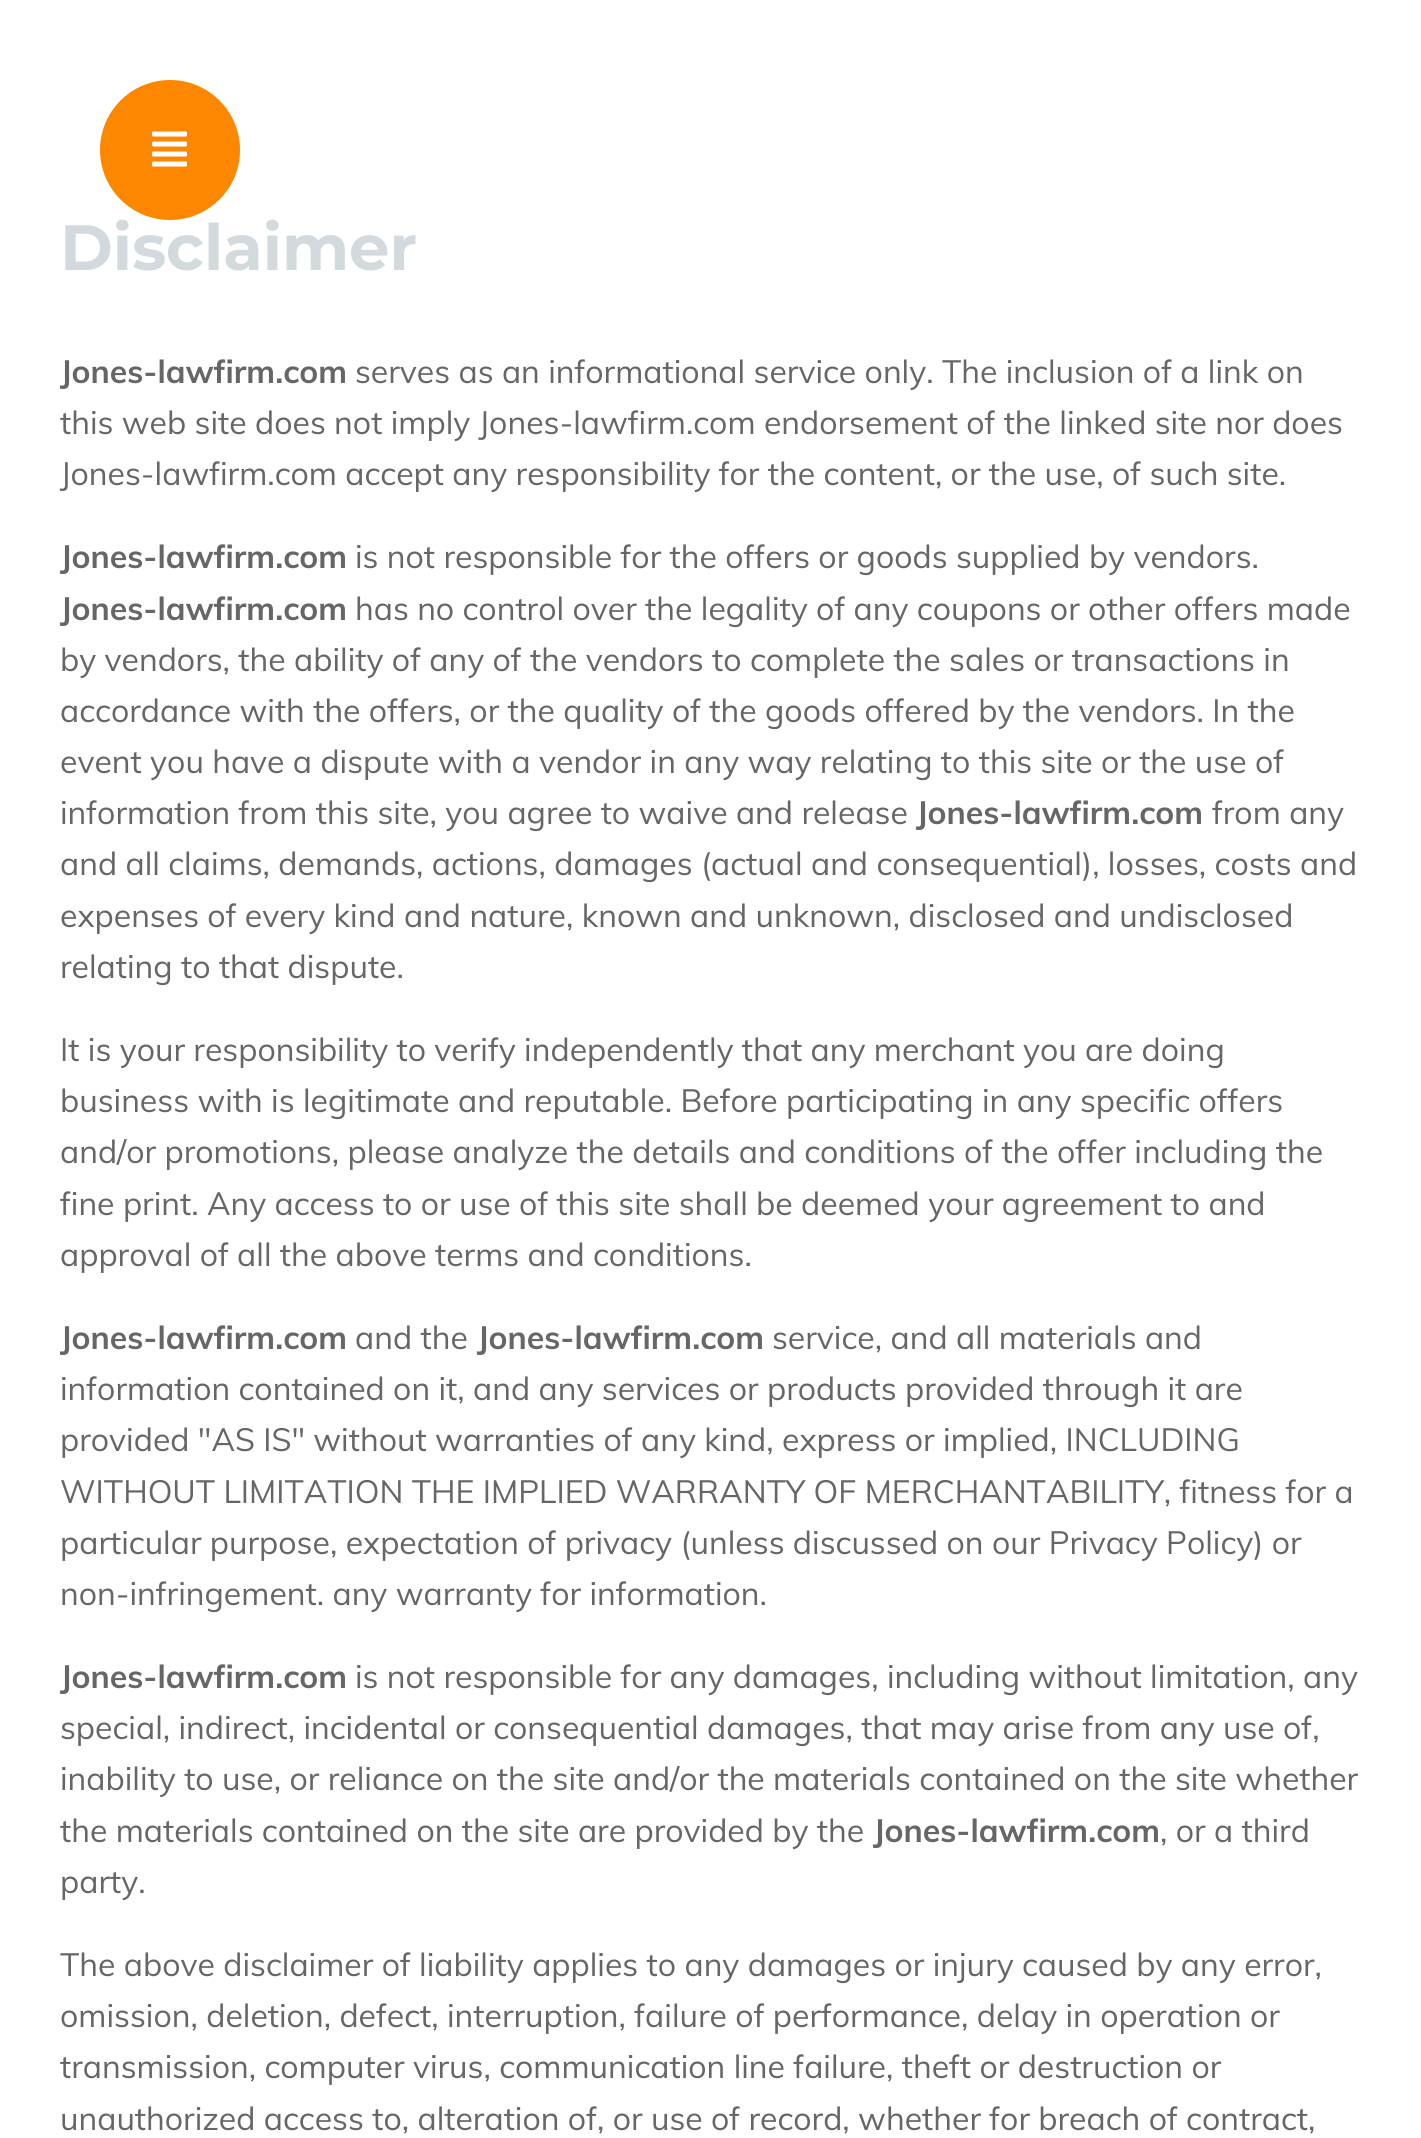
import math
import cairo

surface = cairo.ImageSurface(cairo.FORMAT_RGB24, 1421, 2138)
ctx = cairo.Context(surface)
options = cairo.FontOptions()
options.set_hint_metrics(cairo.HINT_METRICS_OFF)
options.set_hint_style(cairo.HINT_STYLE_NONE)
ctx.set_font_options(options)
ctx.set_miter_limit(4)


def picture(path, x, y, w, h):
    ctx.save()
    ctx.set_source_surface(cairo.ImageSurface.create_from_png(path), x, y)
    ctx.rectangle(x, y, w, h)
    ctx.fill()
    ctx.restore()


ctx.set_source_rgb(1, 1, 1)
ctx.paint()
ctx.select_font_face("Montserrat", cairo.FONT_SLANT_NORMAL, cairo.FONT_WEIGHT_BOLD)
ctx.set_font_size(64)
ctx.set_source_rgb(0.824, 0.855, 0.867)
ctx.move_to(60, 270)
ctx.show_text("Disclaimer")
ctx.set_source_rgb(0.996, 0.529, 0)
ctx.new_path()
ctx.arc(170, 150, 70, 0, 2 * math.pi)
ctx.fill()
picture("img1.png", 152, 131, 35, 36)
ctx.select_font_face("Muli", cairo.FONT_SLANT_NORMAL, cairo.FONT_WEIGHT_BOLD)
ctx.set_font_size(32)
ctx.set_source_rgb(0.4, 0.4, 0.4)
ctx.move_to(60, 383)
ctx.show_text("Jones-lawfirm.com")
ctx.select_font_face("Muli")
ctx.move_to(355, 383)
ctx.show_text("serves as an informational service only. The inclusion of a link on")
ctx.move_to(60, 434)
ctx.show_text("this web site does not imply Jones-lawfirm.com endorsement of the linked site nor does")
ctx.move_to(60, 485)
ctx.show_text("Jones-lawfirm.com accept any responsibility for the content, or the use, of such site.")
ctx.select_font_face("Muli", cairo.FONT_SLANT_NORMAL, cairo.FONT_WEIGHT_BOLD)
ctx.move_to(60, 568)
ctx.show_text("Jones-lawfirm.com")
ctx.select_font_face("Muli")
ctx.move_to(355, 568)
ctx.show_text("is not responsible for the offers or goods supplied by vendors.")
ctx.select_font_face("Muli", cairo.FONT_SLANT_NORMAL, cairo.FONT_WEIGHT_BOLD)
ctx.move_to(60, 620)
ctx.show_text("Jones-lawfirm.com")
ctx.select_font_face("Muli")
ctx.move_to(355, 620)
ctx.show_text("has no control over the legality of any coupons or other offers made")
ctx.move_to(60, 671)
ctx.show_text("by vendors, the ability of any of the vendors to complete the sales or transactions in")
ctx.move_to(60, 722)
ctx.show_text("accordance with the offers, or the quality of the goods offered by the vendors. In the")
ctx.move_to(60, 773)
ctx.show_text("event you have a dispute with a vendor in any way relating to this site or the use of")
ctx.move_to(60, 824)
ctx.show_text("information from this site, you agree to waive and release")
ctx.select_font_face("Muli", cairo.FONT_SLANT_NORMAL, cairo.FONT_WEIGHT_BOLD)
ctx.move_to(916, 824)
ctx.show_text("Jones-lawfirm.com")
ctx.select_font_face("Muli")
ctx.move_to(1212, 824)
ctx.show_text("from any")
ctx.move_to(60, 875)
ctx.show_text("and all claims, demands, actions, damages (actual and consequential), losses, costs and")
ctx.move_to(60, 927)
ctx.show_text("expenses of every kind and nature, known and unknown, disclosed and undisclosed")
ctx.move_to(60, 978)
ctx.show_text("relating to that dispute.")
ctx.move_to(60, 1061)
ctx.show_text("It is your responsibility to verify independently that any merchant you are doing")
ctx.move_to(60, 1112)
ctx.show_text("business with is legitimate and reputable. Before participating in any specific offers")
ctx.move_to(60, 1163)
ctx.show_text("and/or promotions, please analyze the details and conditions of the offer including the")
ctx.move_to(60, 1215)
ctx.show_text("fine print. Any access to or use of this site shall be deemed your agreement to and")
ctx.move_to(60, 1266)
ctx.show_text("approval of all the above terms and conditions.")
ctx.select_font_face("Muli", cairo.FONT_SLANT_NORMAL, cairo.FONT_WEIGHT_BOLD)
ctx.move_to(60, 1349)
ctx.show_text("Jones-lawfirm.com")
ctx.select_font_face("Muli")
ctx.move_to(355, 1349)
ctx.show_text("and the")
ctx.select_font_face("Muli", cairo.FONT_SLANT_NORMAL, cairo.FONT_WEIGHT_BOLD)
ctx.move_to(477, 1349)
ctx.show_text("Jones-lawfirm.com")
ctx.select_font_face("Muli")
ctx.move_to(772, 1349)
ctx.show_text("service, and all materials and")
ctx.move_to(60, 1400)
ctx.show_text("information contained on it, and any services or products provided through it are")
ctx.move_to(60, 1451)
ctx.show_text("provided \"AS IS\" without warranties of any kind, express or implied, INCLUDING")
ctx.move_to(60, 1503)
ctx.show_text("WITHOUT LIMITATION THE IMPLIED WARRANTY OF MERCHANTABILITY, fitness for a")
ctx.move_to(60, 1554)
ctx.show_text("particular purpose, expectation of privacy (unless discussed on our Privacy Policy) or")
ctx.move_to(60, 1605)
ctx.show_text("non-infringement. any warranty for information.")
ctx.select_font_face("Muli", cairo.FONT_SLANT_NORMAL, cairo.FONT_WEIGHT_BOLD)
ctx.move_to(60, 1688)
ctx.show_text("Jones-lawfirm.com")
ctx.select_font_face("Muli")
ctx.move_to(355, 1688)
ctx.show_text("is not responsible for any damages, including without limitation, any")
ctx.move_to(60, 1739)
ctx.show_text("special, indirect, incidental or consequential damages, that may arise from any use of,")
ctx.move_to(60, 1790)
ctx.show_text("inability to use, or reliance on the site and/or the materials contained on the site whether")
ctx.move_to(60, 1842)
ctx.show_text("the materials contained on the site are provided by the")
ctx.select_font_face("Muli", cairo.FONT_SLANT_NORMAL, cairo.FONT_WEIGHT_BOLD)
ctx.move_to(873, 1842)
ctx.show_text("Jones-lawfirm.com")
ctx.select_font_face("Muli")
ctx.move_to(1160, 1842)
ctx.show_text(", or a third")
ctx.move_to(60, 1893)
ctx.show_text("party.")
ctx.move_to(60, 1976)
ctx.show_text("The above disclaimer of liability applies to any damages or injury caused by any error,")
ctx.move_to(60, 2027)
ctx.show_text("omission, deletion, defect, interruption, failure of performance, delay in operation or")
ctx.move_to(60, 2078)
ctx.show_text("transmission, computer virus, communication line failure, theft or destruction or")
ctx.move_to(60, 2130)
ctx.show_text("unauthorized access to, alteration of, or use of record, whether for breach of contract,")
surface.write_to_png("page.png")
